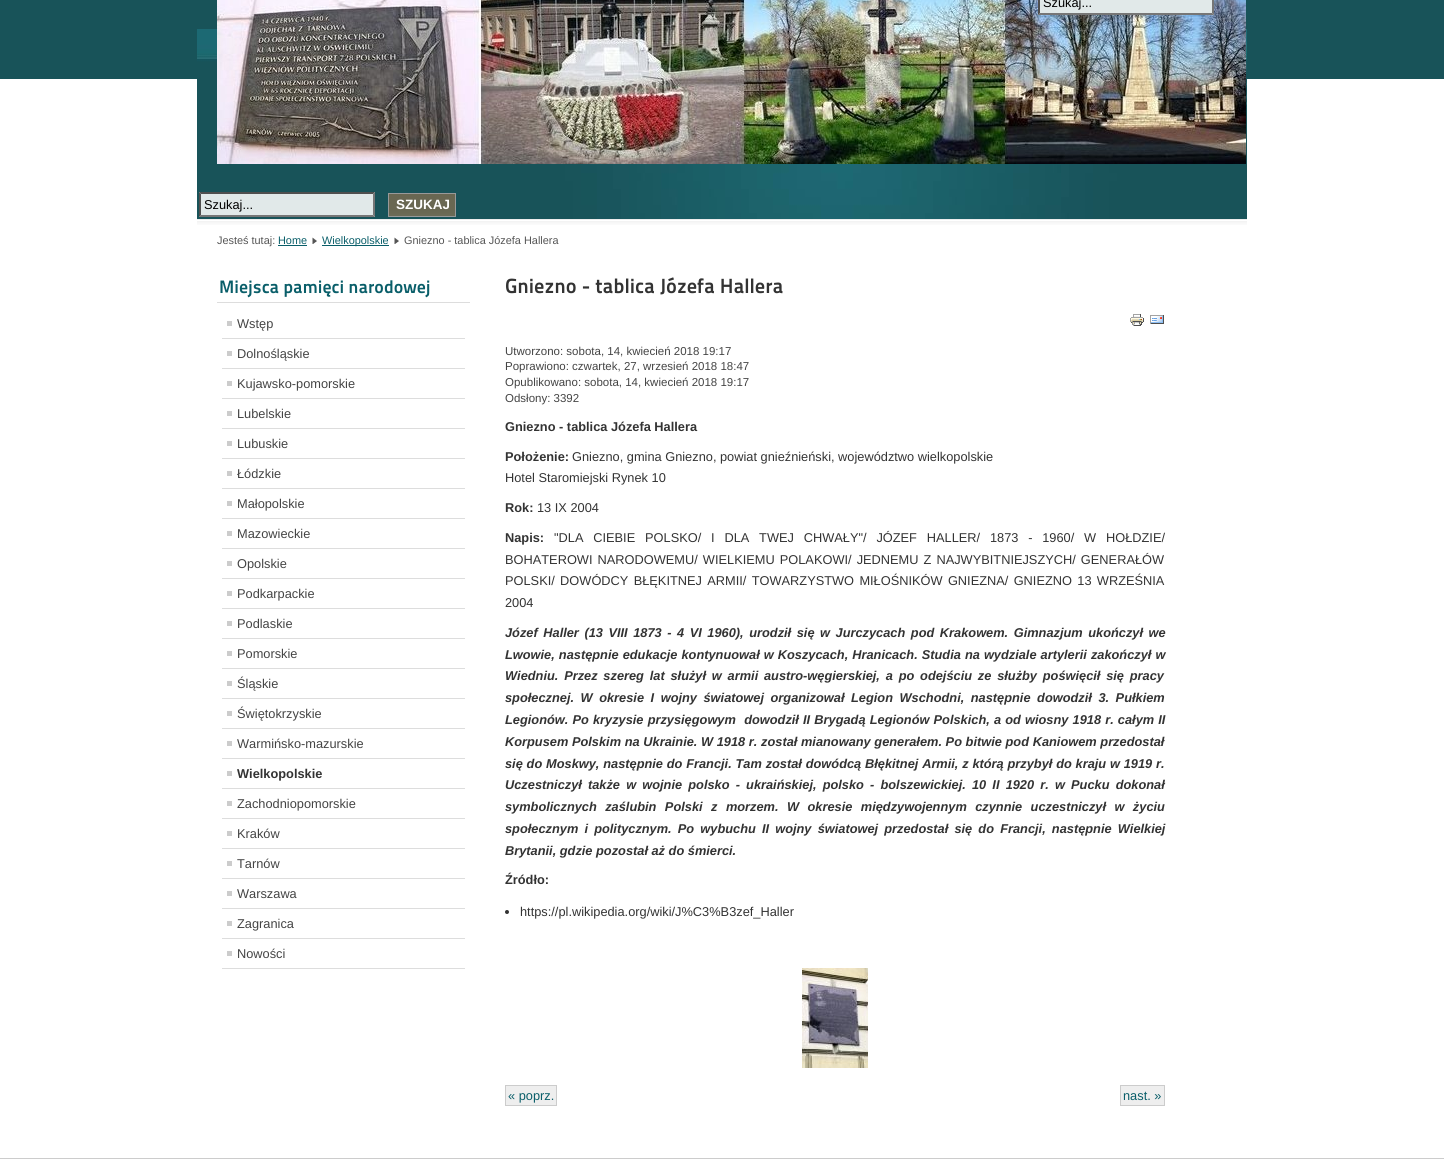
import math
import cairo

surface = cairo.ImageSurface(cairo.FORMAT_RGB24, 1444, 1159)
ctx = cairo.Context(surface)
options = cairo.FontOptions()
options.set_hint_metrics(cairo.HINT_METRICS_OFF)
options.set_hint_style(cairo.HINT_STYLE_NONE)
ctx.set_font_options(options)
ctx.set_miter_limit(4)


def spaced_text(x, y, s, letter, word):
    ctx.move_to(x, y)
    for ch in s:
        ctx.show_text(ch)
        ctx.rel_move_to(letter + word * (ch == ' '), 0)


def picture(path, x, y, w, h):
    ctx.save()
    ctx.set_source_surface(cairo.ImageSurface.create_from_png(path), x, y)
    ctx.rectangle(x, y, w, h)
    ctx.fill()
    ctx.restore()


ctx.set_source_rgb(1, 1, 1)
ctx.paint()
ctx.set_source_rgb(0.094, 0.325, 0.349)
ctx.rectangle(0, 0, 1444, 79)
ctx.fill()
picture("img1.png", 197, 29, 1050, 190)
picture("img2.png", 217, 0, 1029, 164)
ctx.set_source_rgb(0.882, 0.914, 0.914)
ctx.rectangle(1038, 0, 176, 15)
ctx.fill()
ctx.set_source_rgb(0.463, 0.463, 0.463)
ctx.new_path()
ctx.move_to(1214, -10)
ctx.line_to(1214, 15)
ctx.line_to(1212, 13)
ctx.line_to(1212, -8)
ctx.close_path()
ctx.fill()
ctx.new_path()
ctx.move_to(1214, 15)
ctx.line_to(1038, 15)
ctx.line_to(1040, 13)
ctx.line_to(1212, 13)
ctx.close_path()
ctx.fill()
ctx.set_source_rgb(0.31, 0.31, 0.31)
ctx.new_path()
ctx.move_to(1038, 15)
ctx.line_to(1038, -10)
ctx.line_to(1040, -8)
ctx.line_to(1040, 13)
ctx.close_path()
ctx.fill()
ctx.select_font_face("Liberation Sans")
ctx.set_font_size(12.8)
ctx.set_source_rgb(0, 0, 0)
ctx.move_to(1043, 7)
ctx.show_text("Szukaj...")
ctx.set_source_rgb(0.882, 0.914, 0.914)
ctx.rectangle(199, 192, 176, 25)
ctx.fill()
ctx.set_source_rgb(0.31, 0.31, 0.31)
ctx.new_path()
ctx.move_to(199, 192)
ctx.line_to(375, 192)
ctx.line_to(373, 194)
ctx.line_to(201, 194)
ctx.close_path()
ctx.fill()
ctx.set_source_rgb(0.463, 0.463, 0.463)
ctx.new_path()
ctx.move_to(375, 192)
ctx.line_to(375, 217)
ctx.line_to(373, 215)
ctx.line_to(373, 194)
ctx.close_path()
ctx.fill()
ctx.new_path()
ctx.move_to(375, 217)
ctx.line_to(199, 217)
ctx.line_to(201, 215)
ctx.line_to(373, 215)
ctx.close_path()
ctx.fill()
ctx.set_source_rgb(0.31, 0.31, 0.31)
ctx.new_path()
ctx.move_to(199, 217)
ctx.line_to(199, 192)
ctx.line_to(201, 194)
ctx.line_to(201, 215)
ctx.close_path()
ctx.fill()
ctx.set_source_rgb(0, 0, 0)
ctx.move_to(204, 209)
ctx.show_text("Szukaj...")
picture("img3.png", 389, 194, 66, 22)
ctx.rectangle(388.5, 193.5, 67, 23)
ctx.set_source_rgb(0.6, 0.6, 0.6)
ctx.set_line_width(1)
ctx.stroke()
ctx.select_font_face("Liberation Sans", cairo.FONT_SLANT_NORMAL, cairo.FONT_WEIGHT_BOLD)
ctx.set_font_size(13.5)
ctx.set_source_rgb(1, 1, 1)
ctx.move_to(396, 209)
ctx.show_text("SZUKAJ")
picture("img4.png", 197, 219, 1050, 6)
ctx.select_font_face("Liberation Sans")
ctx.set_font_size(10.9)
ctx.set_source_rgb(0.333, 0.333, 0.333)
ctx.move_to(217, 244)
ctx.show_text("Jesteś tutaj:")
ctx.set_source_rgb(0.039, 0.369, 0.412)
ctx.move_to(278, 244)
ctx.show_text("Home")
ctx.rectangle(278, 245, 29, 1)
ctx.fill()
picture("img5.png", 312, 237, 5, 7)
ctx.rectangle(322, 245, 67, 1)
ctx.fill()
ctx.move_to(322, 244)
ctx.show_text("Wielkopolskie")
picture("img5.png", 394, 237, 5, 7)
ctx.set_source_rgb(0.333, 0.333, 0.333)
ctx.move_to(404, 244)
ctx.show_text("Gniezno - tablica Józefa Hallera")
ctx.set_source_rgb(0.867, 0.867, 0.867)
ctx.rectangle(217, 302, 253, 1)
ctx.fill()
ctx.select_font_face("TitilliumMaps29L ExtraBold")
ctx.set_font_size(18)
ctx.set_source_rgb(0.039, 0.369, 0.412)
ctx.move_to(219, 293)
ctx.show_text("Miejsca pamięci narodowej")
ctx.set_source_rgb(0.867, 0.867, 0.867)
ctx.rectangle(222, 338, 243, 1)
ctx.fill()
ctx.set_source_rgb(0.8, 0.8, 0.8)
ctx.rectangle(227, 321, 5, 5)
ctx.fill()
ctx.select_font_face("Liberation Sans")
ctx.set_font_size(12.8)
ctx.set_source_rgb(0.267, 0.267, 0.267)
ctx.move_to(237, 328)
ctx.show_text("Wstęp")
ctx.set_source_rgb(0.867, 0.867, 0.867)
ctx.rectangle(222, 368, 243, 1)
ctx.fill()
ctx.set_source_rgb(0.8, 0.8, 0.8)
ctx.rectangle(227, 351, 5, 5)
ctx.fill()
ctx.set_source_rgb(0.267, 0.267, 0.267)
ctx.move_to(237, 358)
ctx.show_text("Dolnośląskie")
ctx.set_source_rgb(0.867, 0.867, 0.867)
ctx.rectangle(222, 398, 243, 1)
ctx.fill()
ctx.set_source_rgb(0.8, 0.8, 0.8)
ctx.rectangle(227, 381, 5, 5)
ctx.fill()
ctx.set_source_rgb(0.267, 0.267, 0.267)
ctx.move_to(237, 388)
ctx.show_text("Kujawsko-pomorskie")
ctx.set_source_rgb(0.867, 0.867, 0.867)
ctx.rectangle(222, 428, 243, 1)
ctx.fill()
ctx.set_source_rgb(0.8, 0.8, 0.8)
ctx.rectangle(227, 411, 5, 5)
ctx.fill()
ctx.set_source_rgb(0.267, 0.267, 0.267)
ctx.move_to(237, 418)
ctx.show_text("Lubelskie")
ctx.set_source_rgb(0.867, 0.867, 0.867)
ctx.rectangle(222, 458, 243, 1)
ctx.fill()
ctx.set_source_rgb(0.8, 0.8, 0.8)
ctx.rectangle(227, 441, 5, 5)
ctx.fill()
ctx.set_source_rgb(0.267, 0.267, 0.267)
ctx.move_to(237, 448)
ctx.show_text("Lubuskie")
ctx.set_source_rgb(0.867, 0.867, 0.867)
ctx.rectangle(222, 488, 243, 1)
ctx.fill()
ctx.set_source_rgb(0.8, 0.8, 0.8)
ctx.rectangle(227, 471, 5, 5)
ctx.fill()
ctx.set_source_rgb(0.267, 0.267, 0.267)
ctx.move_to(237, 478)
ctx.show_text("Łódzkie")
ctx.set_source_rgb(0.867, 0.867, 0.867)
ctx.rectangle(222, 518, 243, 1)
ctx.fill()
ctx.set_source_rgb(0.8, 0.8, 0.8)
ctx.rectangle(227, 501, 5, 5)
ctx.fill()
ctx.set_source_rgb(0.267, 0.267, 0.267)
ctx.move_to(237, 508)
ctx.show_text("Małopolskie")
ctx.set_source_rgb(0.867, 0.867, 0.867)
ctx.rectangle(222, 548, 243, 1)
ctx.fill()
ctx.set_source_rgb(0.8, 0.8, 0.8)
ctx.rectangle(227, 531, 5, 5)
ctx.fill()
ctx.set_source_rgb(0.267, 0.267, 0.267)
ctx.move_to(237, 538)
ctx.show_text("Mazowieckie")
ctx.set_source_rgb(0.867, 0.867, 0.867)
ctx.rectangle(222, 578, 243, 1)
ctx.fill()
ctx.set_source_rgb(0.8, 0.8, 0.8)
ctx.rectangle(227, 561, 5, 5)
ctx.fill()
ctx.set_source_rgb(0.267, 0.267, 0.267)
ctx.move_to(237, 568)
ctx.show_text("Opolskie")
ctx.set_source_rgb(0.867, 0.867, 0.867)
ctx.rectangle(222, 608, 243, 1)
ctx.fill()
ctx.set_source_rgb(0.8, 0.8, 0.8)
ctx.rectangle(227, 591, 5, 5)
ctx.fill()
ctx.set_source_rgb(0.267, 0.267, 0.267)
ctx.move_to(237, 598)
ctx.show_text("Podkarpackie")
ctx.set_source_rgb(0.867, 0.867, 0.867)
ctx.rectangle(222, 638, 243, 1)
ctx.fill()
ctx.set_source_rgb(0.8, 0.8, 0.8)
ctx.rectangle(227, 621, 5, 5)
ctx.fill()
ctx.set_source_rgb(0.267, 0.267, 0.267)
ctx.move_to(237, 628)
ctx.show_text("Podlaskie")
ctx.set_source_rgb(0.867, 0.867, 0.867)
ctx.rectangle(222, 668, 243, 1)
ctx.fill()
ctx.set_source_rgb(0.8, 0.8, 0.8)
ctx.rectangle(227, 651, 5, 5)
ctx.fill()
ctx.set_source_rgb(0.267, 0.267, 0.267)
ctx.move_to(237, 658)
ctx.show_text("Pomorskie")
ctx.set_source_rgb(0.867, 0.867, 0.867)
ctx.rectangle(222, 698, 243, 1)
ctx.fill()
ctx.set_source_rgb(0.8, 0.8, 0.8)
ctx.rectangle(227, 681, 5, 5)
ctx.fill()
ctx.set_source_rgb(0.267, 0.267, 0.267)
ctx.move_to(237, 688)
ctx.show_text("Śląskie")
ctx.set_source_rgb(0.867, 0.867, 0.867)
ctx.rectangle(222, 728, 243, 1)
ctx.fill()
ctx.set_source_rgb(0.8, 0.8, 0.8)
ctx.rectangle(227, 711, 5, 5)
ctx.fill()
ctx.set_source_rgb(0.267, 0.267, 0.267)
ctx.move_to(237, 718)
ctx.show_text("Świętokrzyskie")
ctx.set_source_rgb(0.867, 0.867, 0.867)
ctx.rectangle(222, 758, 243, 1)
ctx.fill()
ctx.set_source_rgb(0.8, 0.8, 0.8)
ctx.rectangle(227, 741, 5, 5)
ctx.fill()
ctx.set_source_rgb(0.267, 0.267, 0.267)
ctx.move_to(237, 748)
ctx.show_text("Warmińsko-mazurskie")
ctx.set_source_rgb(0.867, 0.867, 0.867)
ctx.rectangle(222, 788, 243, 1)
ctx.fill()
ctx.set_source_rgb(0.8, 0.8, 0.8)
ctx.rectangle(227, 771, 5, 5)
ctx.fill()
ctx.select_font_face("Liberation Sans", cairo.FONT_SLANT_NORMAL, cairo.FONT_WEIGHT_BOLD)
ctx.set_source_rgb(0.2, 0.2, 0.2)
ctx.move_to(237, 778)
ctx.show_text("Wielkopolskie")
ctx.set_source_rgb(0.867, 0.867, 0.867)
ctx.rectangle(222, 818, 243, 1)
ctx.fill()
ctx.set_source_rgb(0.8, 0.8, 0.8)
ctx.rectangle(227, 801, 5, 5)
ctx.fill()
ctx.select_font_face("Liberation Sans")
ctx.set_source_rgb(0.267, 0.267, 0.267)
ctx.move_to(237, 808)
ctx.show_text("Zachodniopomorskie")
ctx.set_source_rgb(0.867, 0.867, 0.867)
ctx.rectangle(222, 848, 243, 1)
ctx.fill()
ctx.set_source_rgb(0.8, 0.8, 0.8)
ctx.rectangle(227, 831, 5, 5)
ctx.fill()
ctx.set_source_rgb(0.267, 0.267, 0.267)
ctx.move_to(237, 838)
ctx.show_text("Kraków")
ctx.set_source_rgb(0.867, 0.867, 0.867)
ctx.rectangle(222, 878, 243, 1)
ctx.fill()
ctx.set_source_rgb(0.8, 0.8, 0.8)
ctx.rectangle(227, 861, 5, 5)
ctx.fill()
ctx.set_source_rgb(0.267, 0.267, 0.267)
ctx.move_to(237, 868)
ctx.show_text("Tarnów")
ctx.set_source_rgb(0.867, 0.867, 0.867)
ctx.rectangle(222, 908, 243, 1)
ctx.fill()
ctx.set_source_rgb(0.8, 0.8, 0.8)
ctx.rectangle(227, 891, 5, 5)
ctx.fill()
ctx.set_source_rgb(0.267, 0.267, 0.267)
ctx.move_to(237, 898)
ctx.show_text("Warszawa")
ctx.set_source_rgb(0.867, 0.867, 0.867)
ctx.rectangle(222, 938, 243, 1)
ctx.fill()
ctx.set_source_rgb(0.8, 0.8, 0.8)
ctx.rectangle(227, 921, 5, 5)
ctx.fill()
ctx.set_source_rgb(0.267, 0.267, 0.267)
ctx.move_to(237, 928)
ctx.show_text("Zagranica")
ctx.set_source_rgb(0.867, 0.867, 0.867)
ctx.rectangle(222, 968, 243, 1)
ctx.fill()
ctx.set_source_rgb(0.8, 0.8, 0.8)
ctx.rectangle(227, 951, 5, 5)
ctx.fill()
ctx.set_source_rgb(0.267, 0.267, 0.267)
ctx.move_to(237, 958)
ctx.show_text("Nowości")
ctx.select_font_face("TitilliumMaps29L ExtraBold")
ctx.set_font_size(20.5)
ctx.set_source_rgb(0.2, 0.2, 0.2)
ctx.move_to(505, 293)
ctx.show_text("Gniezno - tablica Józefa Hallera")
picture("img6.png", 1130, 314, 14, 12)
picture("img7.png", 1150, 315, 14, 9)
ctx.select_font_face("Liberation Sans")
ctx.set_font_size(11.5)
ctx.set_source_rgb(0.267, 0.267, 0.267)
ctx.move_to(505, 355)
ctx.show_text("Utworzono: sobota, 14, kwiecień 2018 19:17")
ctx.move_to(505, 370)
ctx.show_text("Poprawiono: czwartek, 27, wrzesień 2018 18:47")
ctx.move_to(505, 386)
ctx.show_text("Opublikowano: sobota, 14, kwiecień 2018 19:17")
ctx.move_to(505, 402)
ctx.show_text("Odsłony: 3392")
ctx.select_font_face("Liberation Sans", cairo.FONT_SLANT_NORMAL, cairo.FONT_WEIGHT_BOLD)
ctx.set_font_size(12.8)
ctx.set_source_rgb(0.2, 0.2, 0.2)
ctx.move_to(505, 431)
ctx.show_text("Gniezno - tablica Józefa Hallera")
ctx.move_to(505, 461)
ctx.show_text("Położenie:")
ctx.select_font_face("Liberation Sans")
ctx.move_to(572, 461)
ctx.show_text("Gniezno, gmina Gniezno, powiat gnieźnieński, województwo wielkopolskie")
ctx.move_to(505, 482)
ctx.show_text("Hotel Staromiejski Rynek 10")
ctx.select_font_face("Liberation Sans", cairo.FONT_SLANT_NORMAL, cairo.FONT_WEIGHT_BOLD)
ctx.move_to(505, 512)
ctx.show_text("Rok:")
ctx.select_font_face("Liberation Sans")
ctx.move_to(537, 512)
ctx.show_text("13 IX 2004")
ctx.select_font_face("Liberation Sans", cairo.FONT_SLANT_NORMAL, cairo.FONT_WEIGHT_BOLD)
ctx.move_to(505, 542)
ctx.show_text("Napis:")
ctx.select_font_face("Liberation Sans")
spaced_text(554, 542, "\"DLA CIEBIE POLSKO/ I DLA TWEJ CHWAŁY\"/ JÓZEF HALLER/ 1873 - 1960/ W HOŁDZIE/", 0, 6.25)
spaced_text(505, 564, "BOHATEROWI NARODOWEMU/ WIELKIEMU POLAKOWI/ JEDNEMU Z NAJWYBITNIEJSZYCH/ GENERAŁÓW", 0, 1.5)
spaced_text(505, 585, "POLSKI/ DOWÓDCY BŁĘKITNEJ ARMII/ TOWARZYSTWO MIŁOŚNIKÓW GNIEZNA/ GNIEZNO 13 WRZEŚNIA", 0, 1.75)
ctx.move_to(505, 607)
ctx.show_text("2004")
ctx.select_font_face("Liberation Sans", cairo.FONT_SLANT_ITALIC, cairo.FONT_WEIGHT_BOLD)
spaced_text(505, 637, "Józef Haller (13 VIII 1873 - 4 VI 1960), urodził się w Jurczycach pod Krakowem. Gimnazjum ukończył we", 0, 2)
spaced_text(505, 659, "Lwowie, następnie edukacje kontynuował w Koszycach, Hranicach. Studia na wydziale artylerii zakończył w", 0, 0.5)
spaced_text(505, 680, "Wiedniu. Przez szereg lat służył w armii austro-węgierskiej, a po odejściu ze służby poświęcił się pracy", 0, 2.25)
spaced_text(505, 702, "społecznej. W okresie I wojny światowej organizował Legion Wschodni, następnie dowodził 3. Pułkiem", 0, 3)
spaced_text(505, 724, "Legionów. Po kryzysie przysięgowym  dowodził II Brygadą Legionów Polskich, a od wiosny 1918 r. całym II", 0, 0.6)
spaced_text(505, 746, "Korpusem Polskim na Ukrainie. W 1918 r. został mianowany generałem. Po bitwie pod Kaniowem przedostał", 0, 0.1)
spaced_text(505, 768, "się do Moskwy, następnie do Francji. Tam został dowódcą Błękitnej Armii, z którą przybył do kraju w 1919 r.", 0, 0.25)
spaced_text(505, 789, "Uczestniczył także w wojnie polsko - ukraińskiej, polsko - bolszewickiej. 10 II 1920 r. w Pucku dokonał", 0, 2.6)
spaced_text(505, 811, "symbolicznych zaślubin Polski z morzem. W okresie międzywojennym czynnie uczestniczył w życiu", 0, 4.9)
spaced_text(505, 833, "społecznym i politycznym. Po wybuchu II wojny światowej przedostał się do Francji, następnie Wielkiej", 0, 2.6)
ctx.move_to(505, 855)
ctx.show_text("Brytanii, gdzie pozostał aż do śmierci.")
ctx.select_font_face("Liberation Sans", cairo.FONT_SLANT_NORMAL, cairo.FONT_WEIGHT_BOLD)
ctx.move_to(505, 884)
ctx.show_text("Źródło:")
ctx.new_path()
ctx.arc(507, 912, 2, 0, 2 * math.pi)
ctx.fill()
ctx.select_font_face("Liberation Sans")
ctx.move_to(520, 916)
ctx.show_text("https://pl.wikipedia.org/wiki/J%C3%B3zef_Haller")
picture("img8.png", 802, 968, 66, 100)
ctx.set_source_rgb(0.933, 0.933, 0.933)
ctx.rectangle(505.5, 1085.5, 51, 20)
ctx.fill_preserve()
ctx.set_source_rgb(0.8, 0.8, 0.8)
ctx.stroke()
ctx.set_source_rgb(0.039, 0.369, 0.412)
ctx.move_to(508, 1100)
ctx.show_text("« poprz.")
ctx.set_source_rgb(0.933, 0.933, 0.933)
ctx.rectangle(1120.5, 1085.5, 44, 20)
ctx.fill_preserve()
ctx.set_source_rgb(0.8, 0.8, 0.8)
ctx.stroke()
ctx.set_source_rgb(0.039, 0.369, 0.412)
ctx.move_to(1123, 1100)
ctx.show_text("nast. »")
ctx.set_source_rgb(0.8, 0.8, 0.8)
ctx.rectangle(0, 1158, 1444, 1)
ctx.fill()
surface.write_to_png("page.png")
